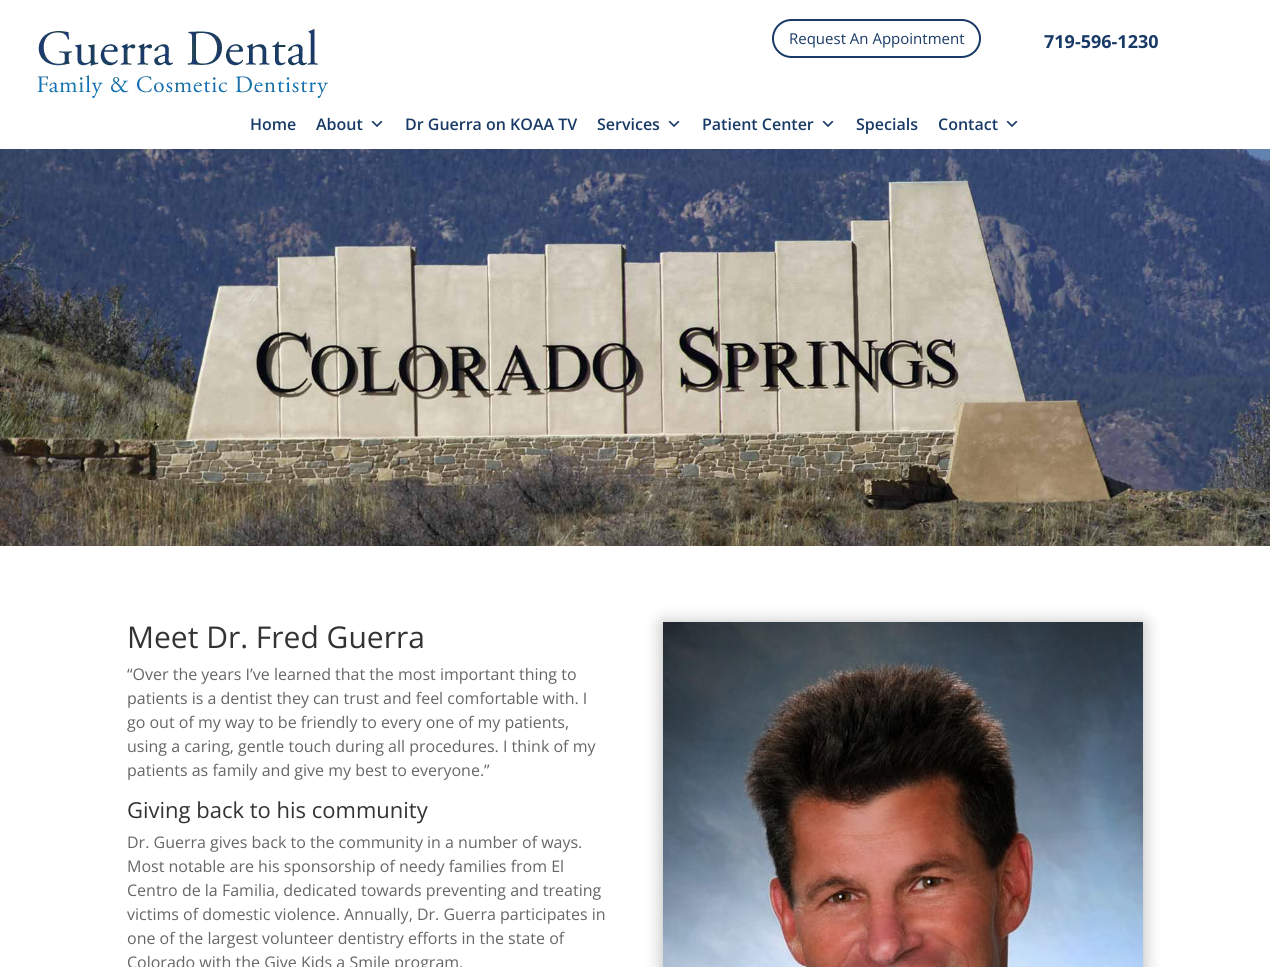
import math
import cairo

surface = cairo.ImageSurface(cairo.FORMAT_RGB24, 1270, 967)
ctx = cairo.Context(surface)
options = cairo.FontOptions()
options.set_hint_metrics(cairo.HINT_METRICS_OFF)
options.set_hint_style(cairo.HINT_STYLE_NONE)
ctx.set_font_options(options)
ctx.set_miter_limit(4)


def round_rect(x, y, w, h, r):
    ctx.new_sub_path()
    for i, (u, v) in enumerate([(x + w - r, y + h - r), (x + r, y + h - r), (x + r, y + r), (x + w - r, y + r)]):
        ctx.arc(u, v, r, i * math.pi / 2, (i + 1) * math.pi / 2)
    ctx.close_path()


def shadow(x, y, w, h, r, blur, alpha):
    ctx.push_group_with_content(cairo.CONTENT_ALPHA)
    ctx.set_operator(cairo.OPERATOR_SOURCE)
    for i in range(15, -16, -2):
        e = blur * i / 6
        if min(w, h) + 2 * e > 0:
            ctx.set_source_rgba(0, 0, 0, alpha * math.erfc((i - 1) / 8.5) / 2)
            round_rect(x - e, y - e, w + 2 * e, h + 2 * e, max(0, min(r + e + blur * .6, min(w, h) / 2 + e)))
            ctx.fill()
    ctx.mask(ctx.pop_group())


def picture(path, x, y, w, h):
    ctx.save()
    ctx.set_source_surface(cairo.ImageSurface.create_from_png(path), x, y)
    ctx.rectangle(x, y, w, h)
    ctx.fill()
    ctx.restore()


ctx.set_source_rgb(1, 1, 1)
ctx.paint()
picture("img1.png", 37, 29, 291, 69)
round_rect(773, 20, 207, 37, 18.5)
ctx.set_source_rgb(0.098, 0.227, 0.4)
ctx.stroke()
ctx.select_font_face("Open Sans")
ctx.set_font_size(15)
ctx.move_to(789, 44)
ctx.show_text("Request An Appointment")
ctx.select_font_face("Open Sans", cairo.FONT_SLANT_NORMAL, cairo.FONT_WEIGHT_BOLD)
ctx.set_font_size(18)
ctx.move_to(1044, 48)
ctx.show_text("719-596-1230")
ctx.select_font_face("Open Sans SemiBold")
ctx.set_font_size(16)
ctx.move_to(250, 130)
ctx.show_text("Home")
ctx.move_to(316, 130)
ctx.show_text("About")
picture("img2.png", 371, 120, 12, 7)
ctx.move_to(405, 130)
ctx.show_text("Dr Guerra on KOAA TV")
ctx.move_to(597, 130)
ctx.show_text("Services")
picture("img2.png", 668, 120, 12, 7)
ctx.move_to(702, 130)
ctx.show_text("Patient Center")
picture("img2.png", 822, 120, 12, 7)
ctx.move_to(856, 130)
ctx.show_text("Specials")
ctx.move_to(938, 130)
ctx.show_text("Contact")
picture("img2.png", 1006, 120, 12, 7)
picture("img3.png", 0, 149, 1270, 397)
ctx.select_font_face("Open Sans")
ctx.set_font_size(30)
ctx.set_source_rgb(0.2, 0.2, 0.2)
ctx.move_to(127, 648)
ctx.show_text("Meet Dr. Fred Guerra")
ctx.set_font_size(16)
ctx.set_source_rgb(0.4, 0.4, 0.4)
ctx.move_to(127, 680)
ctx.show_text("“Over the years I’ve learned that the most important thing to")
ctx.move_to(127, 704)
ctx.show_text("patients is a dentist they can trust and feel comfortable with. I")
ctx.move_to(127, 728)
ctx.show_text("go out of my way to be friendly to every one of my patients,")
ctx.move_to(127, 752)
ctx.show_text("using a caring, gentle touch during all procedures. I think of my")
ctx.move_to(127, 776)
ctx.show_text("patients as family and give my best to everyone.”")
ctx.set_font_size(22)
ctx.set_source_rgb(0.2, 0.2, 0.2)
ctx.move_to(127, 818)
ctx.show_text("Giving back to his community")
ctx.set_font_size(16)
ctx.set_source_rgb(0.4, 0.4, 0.4)
ctx.move_to(127, 848)
ctx.show_text("Dr. Guerra gives back to the community in a number of ways.")
ctx.move_to(127, 872)
ctx.show_text("Most notable are his sponsorship of needy families from El")
ctx.move_to(127, 896)
ctx.show_text("Centro de la Familia, dedicated towards preventing and treating")
ctx.move_to(127, 920)
ctx.show_text("victims of domestic violence. Annually, Dr. Guerra participates in")
ctx.move_to(127, 944)
ctx.show_text("one of the largest volunteer dentistry efforts in the state of")
ctx.move_to(127, 968)
ctx.show_text("Colorado with the Give Kids a Smile program.")
ctx.set_source_rgb(0, 0, 0)
shadow(663, 624, 480, 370, 0, 9, 0.3)
picture("img4.png", 663, 622, 480, 345)
surface.write_to_png("page.png")
